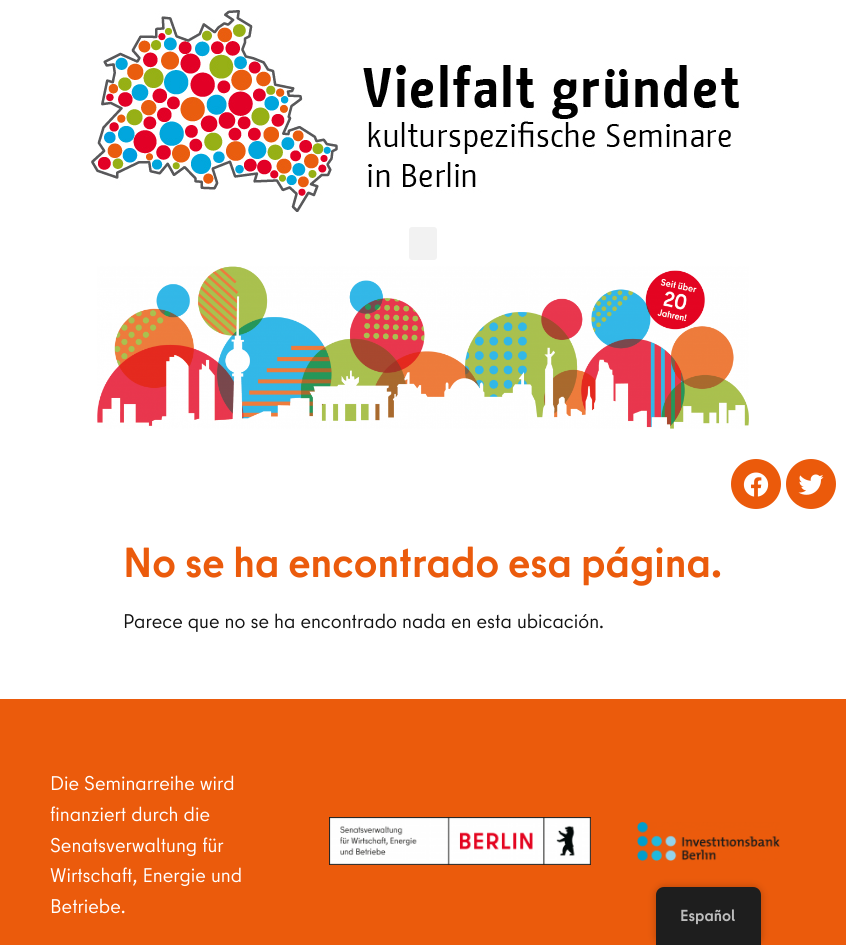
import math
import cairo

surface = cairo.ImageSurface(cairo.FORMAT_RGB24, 846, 945)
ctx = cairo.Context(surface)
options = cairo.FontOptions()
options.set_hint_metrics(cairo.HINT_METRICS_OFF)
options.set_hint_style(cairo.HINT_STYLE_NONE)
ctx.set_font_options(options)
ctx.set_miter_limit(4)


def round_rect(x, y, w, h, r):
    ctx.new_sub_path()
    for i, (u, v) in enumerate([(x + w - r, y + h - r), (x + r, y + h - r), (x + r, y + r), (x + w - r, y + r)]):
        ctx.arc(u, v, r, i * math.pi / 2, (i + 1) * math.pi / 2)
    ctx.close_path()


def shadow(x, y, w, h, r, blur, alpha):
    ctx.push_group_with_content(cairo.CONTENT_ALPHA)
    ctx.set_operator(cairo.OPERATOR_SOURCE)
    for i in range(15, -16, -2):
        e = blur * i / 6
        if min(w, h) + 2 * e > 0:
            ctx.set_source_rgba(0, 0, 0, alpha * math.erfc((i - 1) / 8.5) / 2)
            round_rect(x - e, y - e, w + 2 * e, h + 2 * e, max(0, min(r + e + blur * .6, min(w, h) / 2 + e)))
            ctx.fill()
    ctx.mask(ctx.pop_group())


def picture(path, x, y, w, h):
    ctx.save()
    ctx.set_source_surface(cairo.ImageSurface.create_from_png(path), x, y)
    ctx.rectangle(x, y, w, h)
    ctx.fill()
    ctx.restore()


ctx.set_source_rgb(1, 1, 1)
ctx.paint()
picture("img1.png", 91, 10, 648, 202)
ctx.set_source_rgb(0.949, 0.949, 0.949)
round_rect(409, 227, 28, 33, 3)
ctx.fill()
picture("img2.png", 97, 266, 652, 163)
ctx.set_source_rgb(0.918, 0.353, 0.043)
ctx.arc(756, 484, 25, 0, 2 * math.pi)
ctx.fill()
picture("img3.png", 743, 472, 26, 25)
ctx.arc(811, 484, 25, 0, 2 * math.pi)
ctx.fill()
picture("img4.png", 798, 474, 26, 21)
ctx.select_font_face("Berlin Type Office", cairo.FONT_SLANT_NORMAL, cairo.FONT_WEIGHT_BOLD)
ctx.set_font_size(42)
ctx.set_source_rgb(0.918, 0.357, 0.047)
ctx.move_to(123, 577)
ctx.show_text("No se ha encontrado esa página.")
ctx.select_font_face("Berlin Type Office")
ctx.set_font_size(19.8)
ctx.set_source_rgb(0.075, 0.075, 0.075)
ctx.move_to(123, 628)
ctx.show_text("Parece que no se ha encontrado nada en esta ubicación.")
ctx.set_source_rgb(0.918, 0.357, 0.047)
ctx.rectangle(0, 699, 846, 246)
ctx.fill()
ctx.set_source_rgb(1, 1, 1)
ctx.move_to(50, 790)
ctx.show_text("Die Seminarreihe wird")
ctx.move_to(50, 821)
ctx.show_text("finanziert durch die")
ctx.move_to(50, 852)
ctx.show_text("Senatsverwaltung für")
ctx.move_to(50, 882)
ctx.show_text("Wirtschaft, Energie und")
ctx.move_to(50, 913)
ctx.show_text("Betriebe.")
picture("img5.png", 329, 817, 262, 48)
picture("img6.png", 637, 822, 143, 39)
ctx.set_source_rgb(0, 0, 0)
shadow(656, 887, 105, 58, 8, 4, 0.25)
ctx.set_source_rgb(0.118, 0.118, 0.118)
ctx.new_path()
ctx.move_to(664, 887)
ctx.line_to(753, 887)
ctx.curve_to(757.5, 887, 761, 890.5, 761, 895)
ctx.line_to(761, 945)
ctx.line_to(656, 945)
ctx.line_to(656, 895)
ctx.curve_to(656, 890.5, 659.5, 887, 664, 887)
ctx.close_path()
ctx.fill()
ctx.select_font_face("Berlin Type Office", cairo.FONT_SLANT_NORMAL, cairo.FONT_WEIGHT_BOLD)
ctx.set_font_size(16)
ctx.set_source_rgb(0.741, 0.741, 0.741)
ctx.move_to(680, 921)
ctx.show_text("Español")
surface.write_to_png("page.png")
